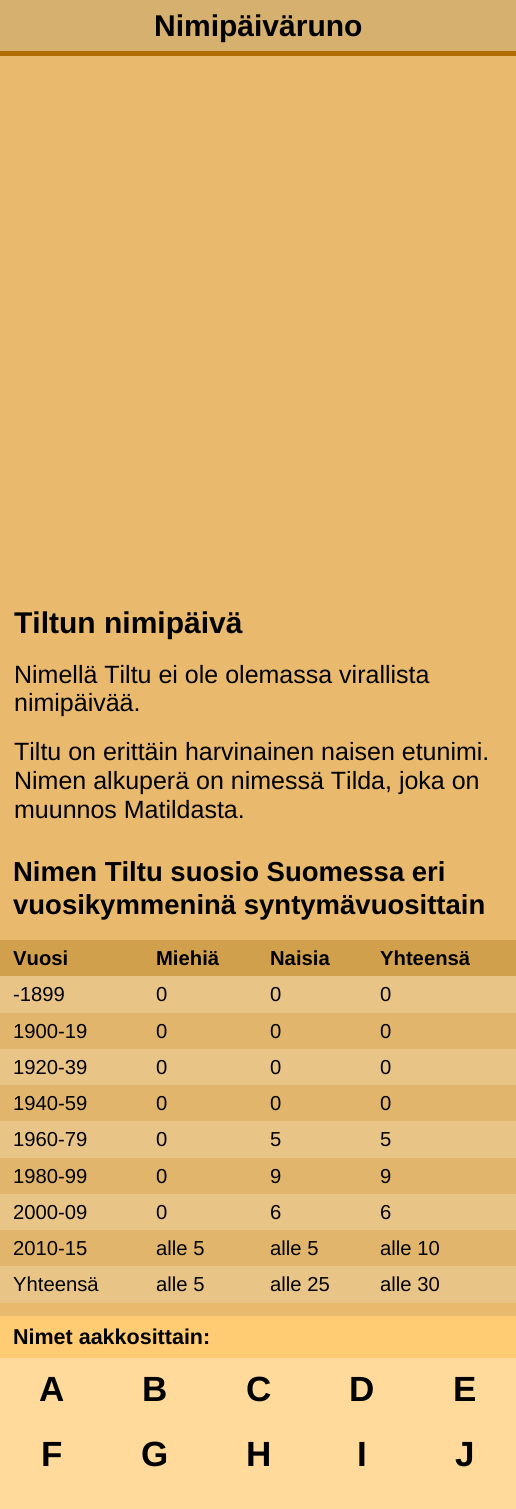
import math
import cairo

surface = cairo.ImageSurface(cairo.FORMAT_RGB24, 516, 1509)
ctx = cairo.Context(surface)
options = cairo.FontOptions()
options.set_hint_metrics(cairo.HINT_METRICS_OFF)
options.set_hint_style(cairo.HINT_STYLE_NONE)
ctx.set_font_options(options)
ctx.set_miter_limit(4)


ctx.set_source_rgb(0.914, 0.725, 0.431)
ctx.paint()
ctx.set_source_rgb(0.835, 0.69, 0.435)
ctx.rectangle(0, 0, 516, 51)
ctx.fill()
ctx.set_source_rgb(0.686, 0.424, 0)
ctx.rectangle(0, 51, 516, 5)
ctx.fill()
ctx.select_font_face("Liberation Sans", cairo.FONT_SLANT_NORMAL, cairo.FONT_WEIGHT_BOLD)
ctx.set_font_size(30)
ctx.set_source_rgb(0, 0, 0)
ctx.move_to(154, 36)
ctx.show_text("Nimipäiväruno")
ctx.move_to(14, 633)
ctx.show_text("Tiltun nimipäivä")
ctx.select_font_face("Liberation Sans")
ctx.set_font_size(25)
ctx.move_to(14, 683)
ctx.show_text("Nimellä Tiltu ei ole olemassa virallista")
ctx.move_to(14, 711)
ctx.show_text("nimipäivää.")
ctx.move_to(14, 760)
ctx.show_text("Tiltu on erittäin harvinainen naisen etunimi.")
ctx.move_to(14, 789)
ctx.show_text("Nimen alkuperä on nimessä Tilda, joka on")
ctx.move_to(14, 818)
ctx.show_text("muunnos Matildasta.")
ctx.select_font_face("Liberation Sans", cairo.FONT_SLANT_NORMAL, cairo.FONT_WEIGHT_BOLD)
ctx.set_font_size(27.5)
ctx.move_to(13, 881)
ctx.show_text("Nimen Tiltu suosio Suomessa eri")
ctx.move_to(13, 914)
ctx.show_text("vuosikymmeninä syntymävuosittain")
ctx.set_source_rgb(0.82, 0.627, 0.302)
ctx.rectangle(0, 940, 516, 36)
ctx.fill()
ctx.set_font_size(20.25)
ctx.set_source_rgb(0, 0, 0)
ctx.move_to(13, 965)
ctx.show_text("Vuosi")
ctx.move_to(156, 965)
ctx.show_text("Miehiä")
ctx.move_to(270, 965)
ctx.show_text("Naisia")
ctx.move_to(380, 965)
ctx.show_text("Yhteensä")
ctx.set_source_rgb(0.91, 0.769, 0.529)
ctx.rectangle(0, 976, 516, 37)
ctx.fill()
ctx.select_font_face("Liberation Sans")
ctx.set_source_rgb(0, 0, 0)
ctx.move_to(13, 1001)
ctx.show_text("-1899")
ctx.move_to(156, 1001)
ctx.show_text("0")
ctx.move_to(270, 1001)
ctx.show_text("0")
ctx.move_to(380, 1001)
ctx.show_text("0")
ctx.set_source_rgb(0.882, 0.714, 0.424)
ctx.rectangle(0, 1013, 516, 36)
ctx.fill()
ctx.set_source_rgb(0, 0, 0)
ctx.move_to(13, 1038)
ctx.show_text("1900-19")
ctx.move_to(156, 1038)
ctx.show_text("0")
ctx.move_to(270, 1038)
ctx.show_text("0")
ctx.move_to(380, 1038)
ctx.show_text("0")
ctx.set_source_rgb(0.91, 0.769, 0.529)
ctx.rectangle(0, 1049, 516, 36)
ctx.fill()
ctx.set_source_rgb(0, 0, 0)
ctx.move_to(13, 1074)
ctx.show_text("1920-39")
ctx.move_to(156, 1074)
ctx.show_text("0")
ctx.move_to(270, 1074)
ctx.show_text("0")
ctx.move_to(380, 1074)
ctx.show_text("0")
ctx.set_source_rgb(0.882, 0.714, 0.424)
ctx.rectangle(0, 1085, 516, 36)
ctx.fill()
ctx.set_source_rgb(0, 0, 0)
ctx.move_to(13, 1110)
ctx.show_text("1940-59")
ctx.move_to(156, 1110)
ctx.show_text("0")
ctx.move_to(270, 1110)
ctx.show_text("0")
ctx.move_to(380, 1110)
ctx.show_text("0")
ctx.set_source_rgb(0.91, 0.769, 0.529)
ctx.rectangle(0, 1121, 516, 37)
ctx.fill()
ctx.set_source_rgb(0, 0, 0)
ctx.move_to(13, 1146)
ctx.show_text("1960-79")
ctx.move_to(156, 1146)
ctx.show_text("0")
ctx.move_to(270, 1146)
ctx.show_text("5")
ctx.move_to(380, 1146)
ctx.show_text("5")
ctx.set_source_rgb(0.882, 0.714, 0.424)
ctx.rectangle(0, 1158, 516, 36)
ctx.fill()
ctx.set_source_rgb(0, 0, 0)
ctx.move_to(13, 1183)
ctx.show_text("1980-99")
ctx.move_to(156, 1183)
ctx.show_text("0")
ctx.move_to(270, 1183)
ctx.show_text("9")
ctx.move_to(380, 1183)
ctx.show_text("9")
ctx.set_source_rgb(0.91, 0.769, 0.529)
ctx.rectangle(0, 1194, 516, 36)
ctx.fill()
ctx.set_source_rgb(0, 0, 0)
ctx.move_to(13, 1219)
ctx.show_text("2000-09")
ctx.move_to(156, 1219)
ctx.show_text("0")
ctx.move_to(270, 1219)
ctx.show_text("6")
ctx.move_to(380, 1219)
ctx.show_text("6")
ctx.set_source_rgb(0.882, 0.714, 0.424)
ctx.rectangle(0, 1230, 516, 36)
ctx.fill()
ctx.set_source_rgb(0, 0, 0)
ctx.move_to(13, 1255)
ctx.show_text("2010-15")
ctx.move_to(156, 1255)
ctx.show_text("alle 5")
ctx.move_to(270, 1255)
ctx.show_text("alle 5")
ctx.move_to(380, 1255)
ctx.show_text("alle 10")
ctx.set_source_rgb(0.91, 0.769, 0.529)
ctx.rectangle(0, 1266, 516, 37)
ctx.fill()
ctx.set_source_rgb(0, 0, 0)
ctx.move_to(13, 1291)
ctx.show_text("Yhteensä")
ctx.move_to(156, 1291)
ctx.show_text("alle 5")
ctx.move_to(270, 1291)
ctx.show_text("alle 25")
ctx.move_to(380, 1291)
ctx.show_text("alle 30")
ctx.set_source_rgb(1, 0.8, 0.451)
ctx.rectangle(0, 1316, 516, 42)
ctx.fill()
ctx.select_font_face("Liberation Sans", cairo.FONT_SLANT_NORMAL, cairo.FONT_WEIGHT_BOLD)
ctx.set_font_size(21.5)
ctx.set_source_rgb(0, 0, 0)
ctx.move_to(13, 1344)
ctx.show_text("Nimet aakkosittain:")
ctx.set_source_rgb(1, 0.855, 0.608)
ctx.rectangle(0, 1358, 516, 65)
ctx.fill()
ctx.set_font_size(35)
ctx.set_source_rgb(0, 0, 0)
ctx.move_to(39, 1401)
ctx.show_text("A")
ctx.move_to(142, 1401)
ctx.show_text("B")
ctx.move_to(246, 1401)
ctx.show_text("C")
ctx.move_to(349, 1401)
ctx.show_text("D")
ctx.move_to(453, 1401)
ctx.show_text("E")
ctx.set_source_rgb(1, 0.855, 0.608)
ctx.rectangle(0, 1423, 516, 65)
ctx.fill()
ctx.set_source_rgb(0, 0, 0)
ctx.move_to(41, 1466)
ctx.show_text("F")
ctx.move_to(141, 1466)
ctx.show_text("G")
ctx.move_to(246, 1466)
ctx.show_text("H")
ctx.move_to(357, 1466)
ctx.show_text("I")
ctx.move_to(455, 1466)
ctx.show_text("J")
ctx.set_source_rgb(1, 0.855, 0.608)
ctx.rectangle(0, 1488, 516, 21)
ctx.fill()
surface.write_to_png("page.png")
